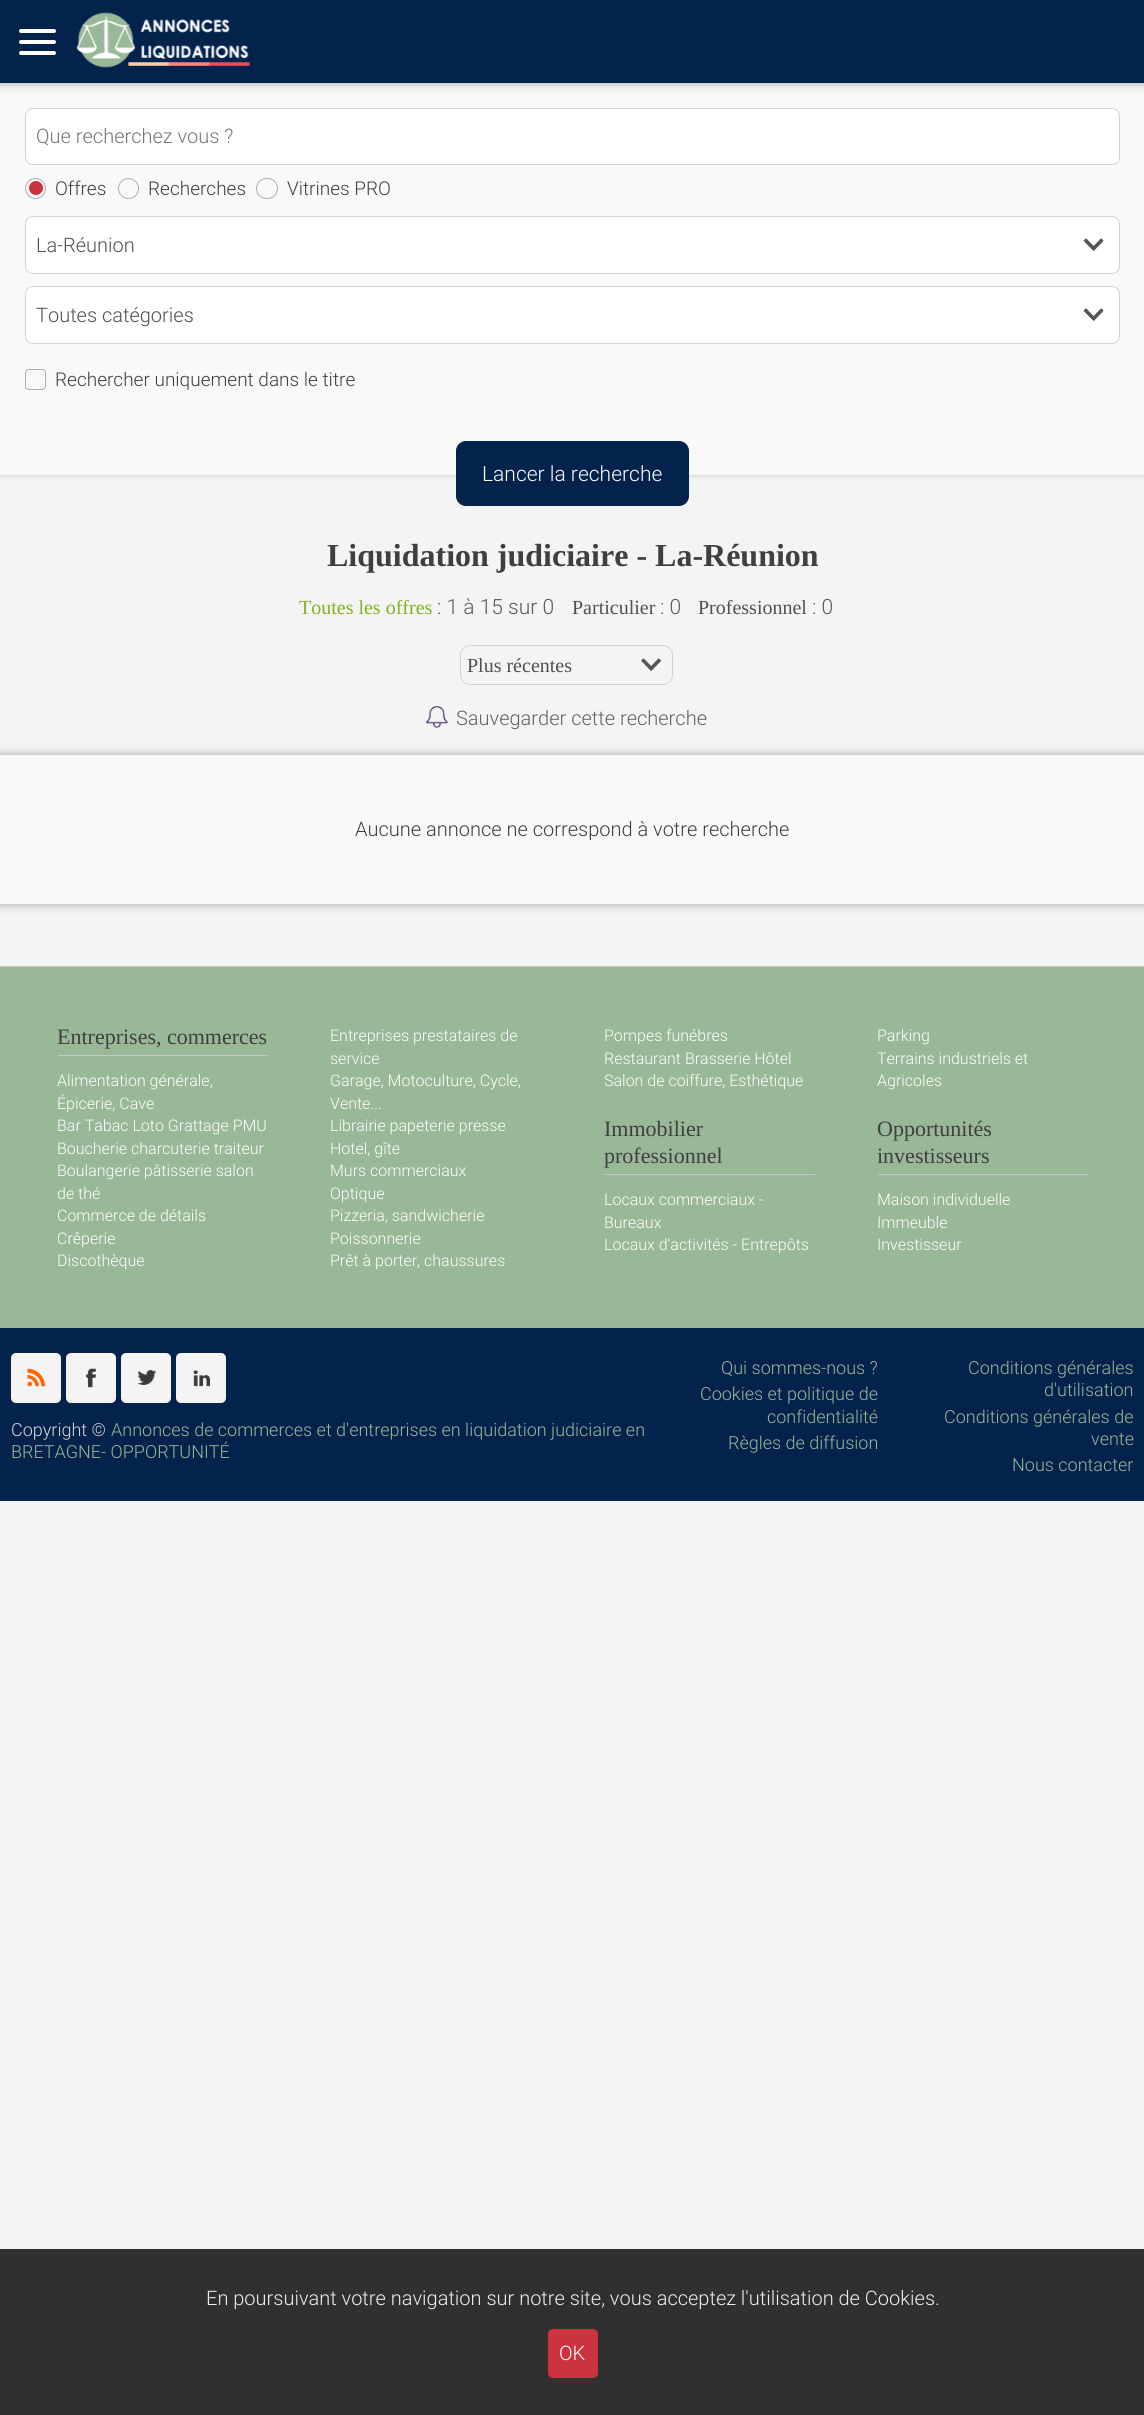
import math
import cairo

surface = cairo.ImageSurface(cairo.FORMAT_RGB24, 1144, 2415)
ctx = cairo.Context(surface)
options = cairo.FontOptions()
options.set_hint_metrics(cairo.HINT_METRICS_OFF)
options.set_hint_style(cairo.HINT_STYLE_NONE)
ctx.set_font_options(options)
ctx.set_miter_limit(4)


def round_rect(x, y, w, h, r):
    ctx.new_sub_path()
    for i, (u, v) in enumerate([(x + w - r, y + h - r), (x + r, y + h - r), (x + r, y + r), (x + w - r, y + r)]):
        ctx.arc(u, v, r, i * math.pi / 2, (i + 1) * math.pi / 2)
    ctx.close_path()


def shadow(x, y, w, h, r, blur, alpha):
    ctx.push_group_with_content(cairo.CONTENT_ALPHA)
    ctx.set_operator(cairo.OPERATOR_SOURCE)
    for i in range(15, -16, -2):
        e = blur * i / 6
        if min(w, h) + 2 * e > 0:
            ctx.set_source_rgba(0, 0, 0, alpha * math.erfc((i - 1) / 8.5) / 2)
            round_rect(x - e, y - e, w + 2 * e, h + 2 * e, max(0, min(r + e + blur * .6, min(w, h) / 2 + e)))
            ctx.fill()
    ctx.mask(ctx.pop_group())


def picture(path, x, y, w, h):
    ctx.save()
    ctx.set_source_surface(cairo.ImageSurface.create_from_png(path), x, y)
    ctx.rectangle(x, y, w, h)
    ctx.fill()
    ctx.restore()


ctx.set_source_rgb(0.957, 0.957, 0.957)
ctx.paint()
ctx.set_source_rgb(0.769, 0.769, 0.769)
shadow(0, 83, 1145, 392, 0, 2.5, 1)
ctx.set_source_rgb(0.976, 0.976, 0.976)
ctx.rectangle(0, 83, 1144, 392)
ctx.fill()
ctx.set_source_rgb(0.635, 0.635, 0.635)
shadow(0, 0, 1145, 83, 0, 5, 1)
ctx.set_source_rgb(0.012, 0.133, 0.298)
ctx.rectangle(0, 0, 1144, 83)
ctx.fill()
ctx.set_source_rgb(1, 1, 1)
round_rect(19, 29, 37, 4, 2)
ctx.fill()
round_rect(19, 40, 37, 4, 2)
ctx.fill()
round_rect(19, 51, 37, 4, 2)
ctx.fill()
picture("img1.png", 76, 12, 174, 56)
round_rect(25.5, 108.5, 1094, 56, 7.5)
ctx.fill_preserve()
ctx.set_source_rgb(0.831, 0.824, 0.847)
ctx.set_line_width(1)
ctx.stroke()
ctx.select_font_face("Roboto Light")
ctx.set_font_size(20)
ctx.set_source_rgb(0.459, 0.459, 0.459)
ctx.move_to(36, 143)
ctx.show_text("Que recherchez vous ?")
ctx.new_path()
ctx.arc(35.5, 188.5, 10, 0, 2 * math.pi)
ctx.set_source_rgb(0.686, 0.678, 0.702)
ctx.stroke()
ctx.set_source_rgb(0.8, 0.2, 0.247)
ctx.arc(36, 188, 7.5, 0, 2 * math.pi)
ctx.fill_preserve()
ctx.set_source_rgb(0.973, 0.973, 0.973)
ctx.stroke()
ctx.set_font_size(19)
ctx.set_source_rgb(0.247, 0.247, 0.247)
ctx.move_to(55, 195)
ctx.show_text("Offres")
ctx.new_path()
ctx.arc(128.5, 188.5, 10, 0, 2 * math.pi)
ctx.set_source_rgb(0.686, 0.678, 0.702)
ctx.stroke()
ctx.set_source_rgb(0.247, 0.247, 0.247)
ctx.move_to(148, 195)
ctx.show_text("Recherches")
round_rect(256.5, 178.5, 21, 20, 10)
ctx.set_source_rgb(0.686, 0.678, 0.702)
ctx.stroke()
ctx.set_source_rgb(0.247, 0.247, 0.247)
ctx.move_to(287, 195)
ctx.show_text("Vitrines PRO")
ctx.set_source_rgb(1, 1, 1)
round_rect(25, 216, 1095, 58, 8)
ctx.fill()
picture("img2.png", 1083, 238, 21, 13)
round_rect(25.5, 216.5, 1094, 57, 7.5)
ctx.set_source_rgb(0.831, 0.824, 0.847)
ctx.stroke()
ctx.set_font_size(20)
ctx.set_source_rgb(0.314, 0.314, 0.314)
ctx.move_to(36, 252)
ctx.show_text("La-Réunion")
ctx.set_source_rgb(1, 1, 1)
round_rect(25, 286, 1095, 58, 8)
ctx.fill()
picture("img2.png", 1083, 308, 21, 13)
round_rect(25.5, 286.5, 1094, 57, 7.5)
ctx.set_source_rgb(0.831, 0.824, 0.847)
ctx.stroke()
ctx.set_source_rgb(0.314, 0.314, 0.314)
ctx.move_to(36, 322)
ctx.show_text("Toutes catégories")
round_rect(25.5, 369.5, 20, 20, 3.5)
ctx.set_source_rgb(0.686, 0.678, 0.702)
ctx.stroke()
ctx.set_font_size(19)
ctx.set_source_rgb(0.247, 0.247, 0.247)
ctx.move_to(55, 386)
ctx.show_text("Rechercher uniquement dans le titre")
ctx.set_source_rgb(0.012, 0.133, 0.298)
round_rect(456.5, 441.5, 232, 64, 9.5)
ctx.fill_preserve()
ctx.stroke()
ctx.set_font_size(21)
ctx.set_source_rgb(1, 1, 1)
ctx.move_to(482, 481)
ctx.show_text("Lancer la recherche")
ctx.select_font_face("Liberation Serif", cairo.FONT_SLANT_NORMAL, cairo.FONT_WEIGHT_BOLD)
ctx.set_font_size(32)
ctx.set_source_rgb(0.247, 0.247, 0.247)
ctx.move_to(327, 566)
ctx.show_text("Liquidation judiciaire - La-Réunion")
ctx.select_font_face("Liberation Serif")
ctx.set_font_size(20)
ctx.set_source_rgb(0.506, 0.698, 0.141)
ctx.move_to(299, 614)
ctx.show_text("Toutes les offres")
ctx.select_font_face("Roboto Light")
ctx.set_font_size(21)
ctx.set_source_rgb(0.349, 0.349, 0.349)
ctx.move_to(437, 614)
ctx.show_text(": 1 à 15 sur 0")
ctx.select_font_face("Liberation Serif")
ctx.set_font_size(20)
ctx.set_source_rgb(0.314, 0.314, 0.314)
ctx.move_to(572, 614)
ctx.show_text("Particulier")
ctx.select_font_face("Roboto Light")
ctx.set_font_size(21)
ctx.set_source_rgb(0.349, 0.349, 0.349)
ctx.move_to(660, 614)
ctx.show_text(": 0")
ctx.select_font_face("Liberation Serif")
ctx.set_font_size(20)
ctx.set_source_rgb(0.314, 0.314, 0.314)
ctx.move_to(698, 614)
ctx.show_text("Professionnel")
ctx.select_font_face("Roboto Light")
ctx.set_font_size(21)
ctx.set_source_rgb(0.349, 0.349, 0.349)
ctx.move_to(812, 614)
ctx.show_text(": 0")
picture("img3.png", 641, 658, 21, 13)
round_rect(460.5, 645.5, 212, 39, 9.5)
ctx.set_source_rgb(0.831, 0.824, 0.847)
ctx.stroke()
ctx.select_font_face("Liberation Serif")
ctx.set_font_size(20)
ctx.set_source_rgb(0.314, 0.314, 0.314)
ctx.move_to(467, 672)
ctx.show_text("Plus récentes")
picture("img4.png", 426, 706, 22, 22)
ctx.select_font_face("Roboto Light")
ctx.set_source_rgb(0.388, 0.388, 0.388)
ctx.move_to(456, 725)
ctx.show_text("Sauvegarder cette recherche")
ctx.set_source_rgb(0.635, 0.635, 0.635)
shadow(0, 755, 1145, 149, 0, 5, 1)
ctx.set_source_rgb(0.976, 0.976, 0.976)
ctx.rectangle(0, 755, 1144, 149)
ctx.fill()
ctx.set_source_rgb(0.247, 0.247, 0.247)
ctx.move_to(355, 836)
ctx.show_text("Aucune annonce ne correspond à votre recherche")
ctx.set_source_rgb(0.6, 0.722, 0.596)
ctx.rectangle(0, 967, 1144, 361)
ctx.fill()
ctx.set_source_rgb(0.78, 0.78, 0.78)
ctx.rectangle(0, 966, 1144, 1)
ctx.fill()
ctx.set_source_rgb(0.776, 0.776, 0.776)
ctx.rectangle(58, 1055, 210, 1)
ctx.fill()
ctx.select_font_face("Liberation Serif")
ctx.set_font_size(22)
ctx.set_source_rgb(0.247, 0.247, 0.247)
ctx.move_to(57, 1044)
ctx.show_text("Entreprises, commerces")
ctx.select_font_face("Roboto Light")
ctx.set_font_size(16)
ctx.set_source_rgb(1, 1, 1)
ctx.move_to(330, 1041)
ctx.show_text("Entreprises prestataires de")
ctx.move_to(330, 1064)
ctx.show_text("service")
ctx.move_to(604, 1041)
ctx.show_text("Pompes funébres")
ctx.move_to(604, 1064)
ctx.show_text("Restaurant Brasserie Hôtel")
ctx.move_to(57, 1086)
ctx.show_text("Alimentation générale,")
ctx.move_to(57, 1109)
ctx.show_text("Épicerie, Cave")
ctx.move_to(330, 1086)
ctx.show_text("Garage, Motoculture, Cycle,")
ctx.move_to(330, 1109)
ctx.show_text("Vente...")
ctx.move_to(604, 1086)
ctx.show_text("Salon de coiffure, Esthétique")
ctx.move_to(57, 1131)
ctx.show_text("Bar Tabac Loto Grattage PMU")
ctx.move_to(330, 1131)
ctx.show_text("Librairie papeterie presse")
ctx.move_to(57, 1154)
ctx.show_text("Boucherie charcuterie traiteur")
ctx.move_to(330, 1154)
ctx.show_text("Hotel, gîte")
ctx.move_to(57, 1176)
ctx.show_text("Boulangerie pâtisserie salon")
ctx.move_to(57, 1199)
ctx.show_text("de thé")
ctx.move_to(330, 1176)
ctx.show_text("Murs commerciaux")
ctx.move_to(330, 1199)
ctx.show_text("Optique")
ctx.move_to(57, 1221)
ctx.show_text("Commerce de détails")
ctx.move_to(330, 1221)
ctx.show_text("Pizzeria, sandwicherie")
ctx.move_to(57, 1244)
ctx.show_text("Crêperie")
ctx.move_to(330, 1244)
ctx.show_text("Poissonnerie")
ctx.move_to(57, 1266)
ctx.show_text("Discothèque")
ctx.move_to(330, 1266)
ctx.show_text("Prêt à porter, chaussures")
ctx.move_to(877, 1041)
ctx.show_text("Parking")
ctx.move_to(877, 1064)
ctx.show_text("Terrains industriels et")
ctx.move_to(877, 1086)
ctx.show_text("Agricoles")
ctx.set_source_rgb(0.776, 0.776, 0.776)
ctx.rectangle(604, 1174, 211, 1)
ctx.fill()
ctx.select_font_face("Liberation Serif")
ctx.set_font_size(22)
ctx.set_source_rgb(0.247, 0.247, 0.247)
ctx.move_to(604, 1136)
ctx.show_text("Immobilier")
ctx.move_to(604, 1163)
ctx.show_text("professionnel")
ctx.select_font_face("Roboto Light")
ctx.set_font_size(16)
ctx.set_source_rgb(1, 1, 1)
ctx.move_to(604, 1205)
ctx.show_text("Locaux commerciaux -")
ctx.move_to(604, 1228)
ctx.show_text("Bureaux")
ctx.move_to(604, 1250)
ctx.show_text("Locaux d'activités - Entrepôts")
ctx.set_source_rgb(0.776, 0.776, 0.776)
ctx.rectangle(878, 1174, 210, 1)
ctx.fill()
ctx.select_font_face("Liberation Serif")
ctx.set_font_size(22)
ctx.set_source_rgb(0.247, 0.247, 0.247)
ctx.move_to(877, 1136)
ctx.show_text("Opportunités")
ctx.move_to(877, 1163)
ctx.show_text("investisseurs")
ctx.select_font_face("Roboto Light")
ctx.set_font_size(16)
ctx.set_source_rgb(1, 1, 1)
ctx.move_to(877, 1205)
ctx.show_text("Maison individuelle")
ctx.move_to(877, 1228)
ctx.show_text("Immeuble")
ctx.move_to(877, 1250)
ctx.show_text("Investisseur")
ctx.set_source_rgb(0.012, 0.133, 0.298)
ctx.rectangle(0, 1328, 1144, 173)
ctx.fill()
ctx.set_source_rgb(0.957, 0.957, 0.957)
round_rect(11, 1353, 50, 50, 5)
ctx.fill()
picture("img5.png", 27, 1368, 18, 19)
round_rect(66, 1353, 50, 50, 5)
ctx.fill()
picture("img6.png", 86, 1368, 11, 20)
round_rect(121, 1353, 50, 50, 5)
ctx.fill()
picture("img7.png", 137, 1370, 20, 15)
round_rect(176, 1353, 50, 50, 5)
ctx.fill()
picture("img8.png", 193, 1370, 17, 17)
ctx.set_font_size(18)
ctx.set_source_rgb(0.843, 0.843, 0.843)
ctx.move_to(11, 1436)
ctx.show_text("Copyright ©")
ctx.set_source_rgb(0.6, 0.722, 0.596)
ctx.move_to(111, 1436)
ctx.show_text("Annonces de commerces et d'entreprises en liquidation judiciaire en")
ctx.move_to(11, 1458)
ctx.show_text("BRETAGNE- OPPORTUNITÉ")
ctx.move_to(721, 1374)
ctx.show_text("Qui sommes-nous ?")
ctx.move_to(968, 1374)
ctx.show_text("Conditions générales")
ctx.move_to(1044, 1396)
ctx.show_text("d'utilisation")
ctx.move_to(700, 1400)
ctx.show_text("Cookies et politique de")
ctx.move_to(767, 1423)
ctx.show_text("confidentialité")
ctx.move_to(944, 1423)
ctx.show_text("Conditions générales de")
ctx.move_to(1091, 1445)
ctx.show_text("vente")
ctx.move_to(728, 1449)
ctx.show_text("Règles de diffusion")
ctx.move_to(1012, 1471)
ctx.show_text("Nous contacter")
ctx.set_source_rgb(0.188, 0.188, 0.188)
ctx.rectangle(0, 2249, 1144, 166)
ctx.fill()
ctx.set_font_size(20)
ctx.set_source_rgb(0.933, 0.933, 0.933)
ctx.move_to(206, 2305)
ctx.show_text("En poursuivant votre navigation sur notre site, vous acceptez l'utilisation de Cookies.")
ctx.set_source_rgb(0.8, 0.2, 0.247)
round_rect(548, 2329, 50, 49, 5)
ctx.fill()
ctx.set_source_rgb(1, 1, 1)
ctx.move_to(559, 2360)
ctx.show_text("OK")
surface.write_to_png("page.png")
